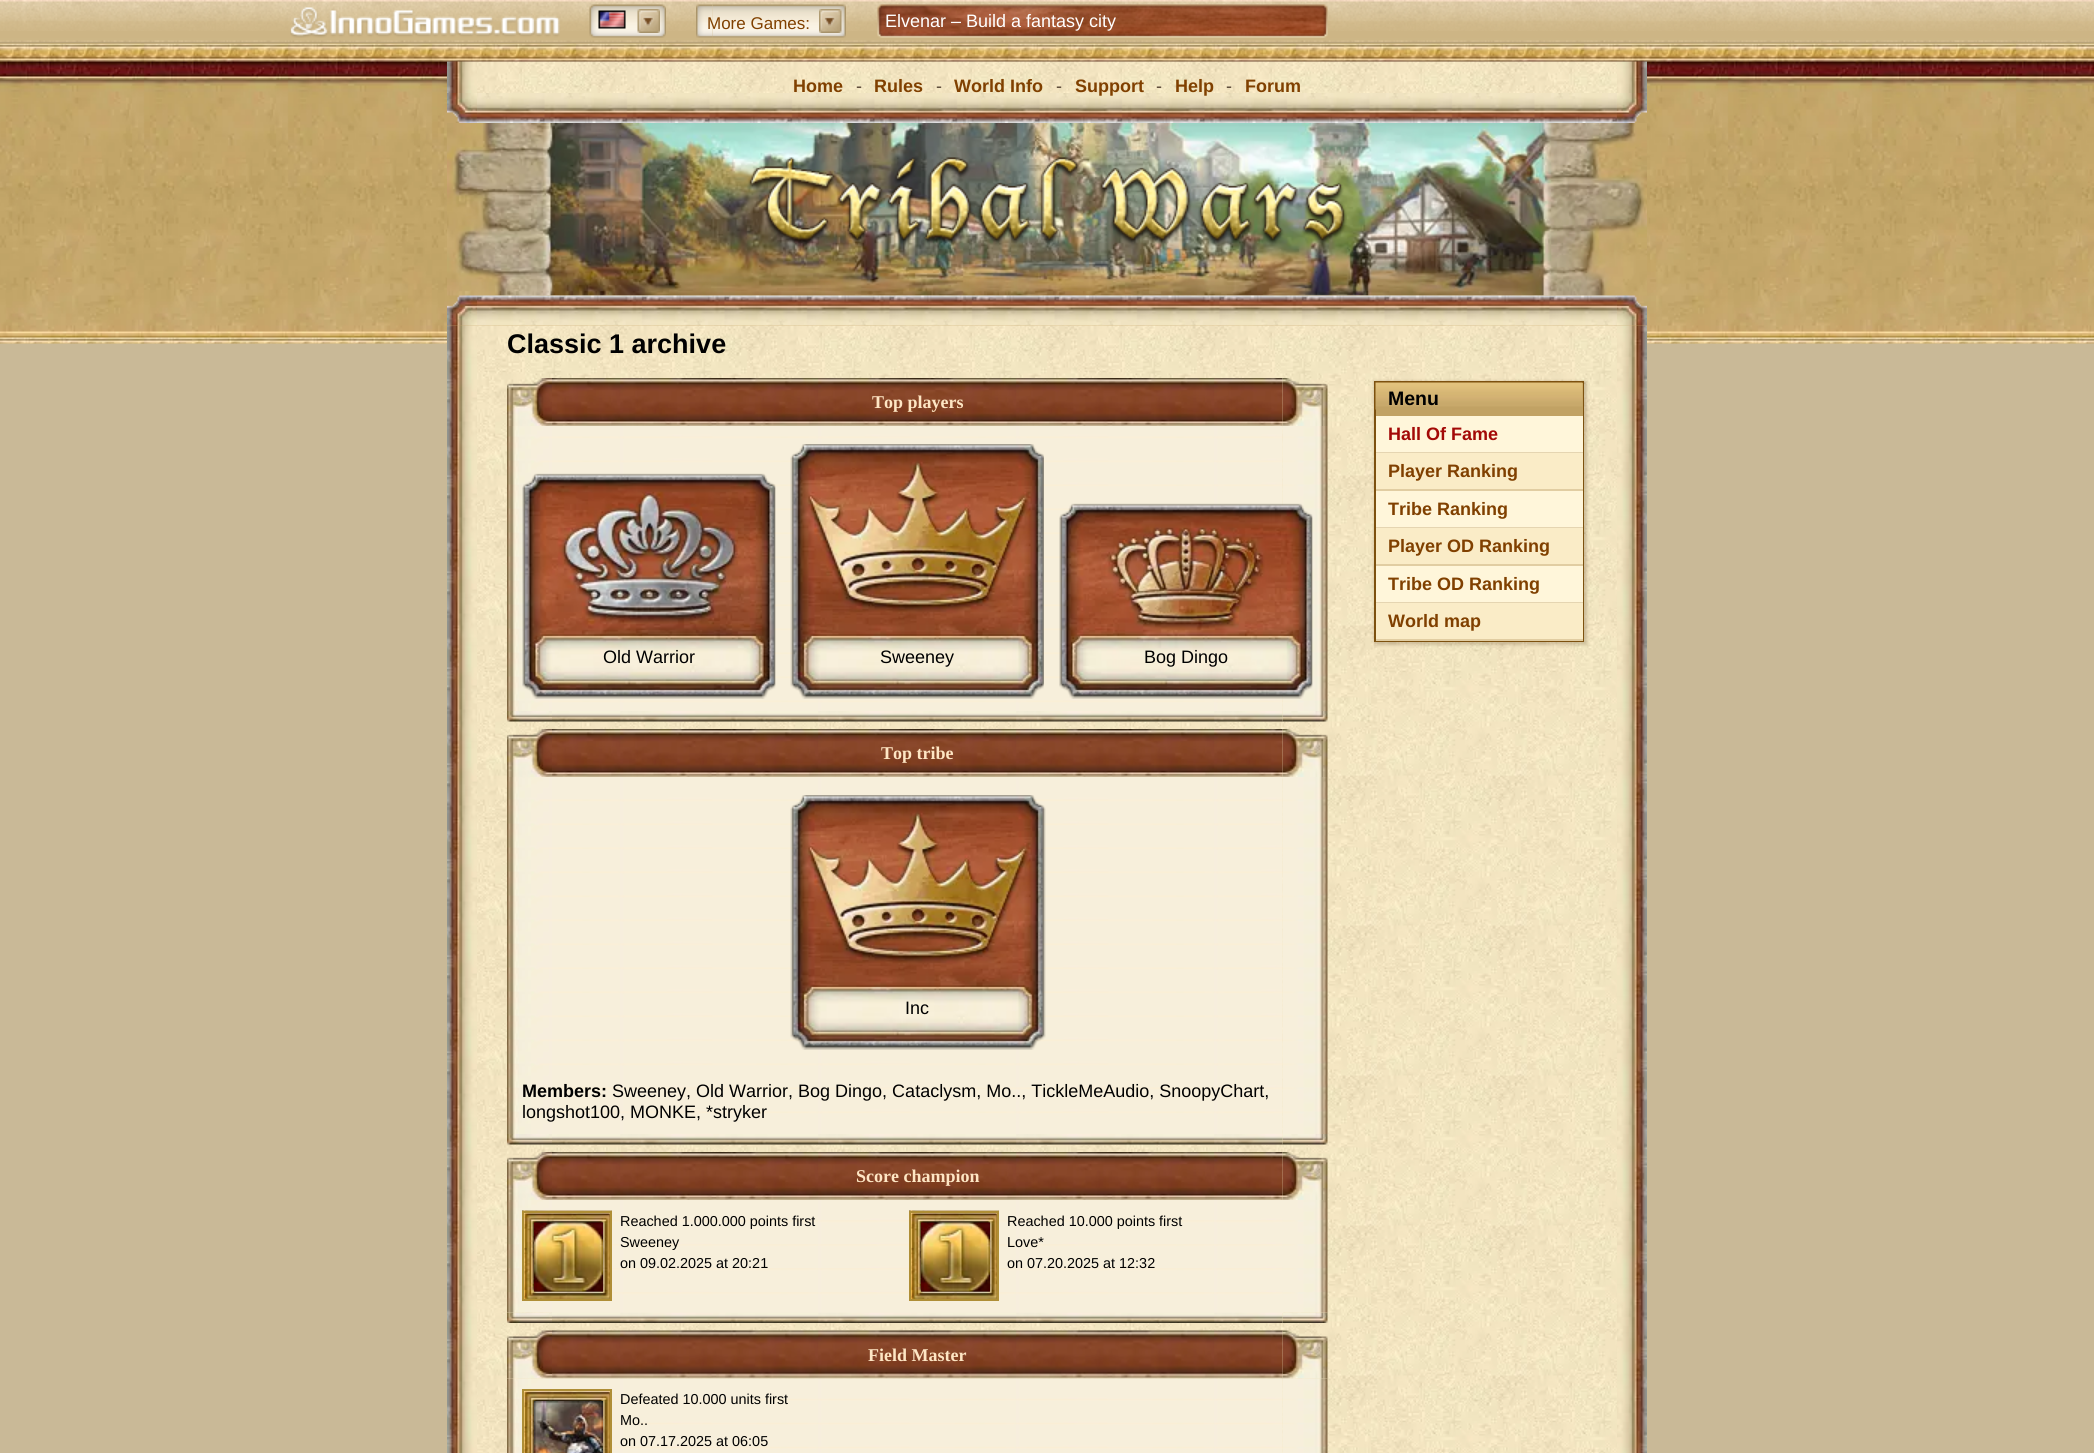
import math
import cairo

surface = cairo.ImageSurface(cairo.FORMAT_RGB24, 2094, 1453)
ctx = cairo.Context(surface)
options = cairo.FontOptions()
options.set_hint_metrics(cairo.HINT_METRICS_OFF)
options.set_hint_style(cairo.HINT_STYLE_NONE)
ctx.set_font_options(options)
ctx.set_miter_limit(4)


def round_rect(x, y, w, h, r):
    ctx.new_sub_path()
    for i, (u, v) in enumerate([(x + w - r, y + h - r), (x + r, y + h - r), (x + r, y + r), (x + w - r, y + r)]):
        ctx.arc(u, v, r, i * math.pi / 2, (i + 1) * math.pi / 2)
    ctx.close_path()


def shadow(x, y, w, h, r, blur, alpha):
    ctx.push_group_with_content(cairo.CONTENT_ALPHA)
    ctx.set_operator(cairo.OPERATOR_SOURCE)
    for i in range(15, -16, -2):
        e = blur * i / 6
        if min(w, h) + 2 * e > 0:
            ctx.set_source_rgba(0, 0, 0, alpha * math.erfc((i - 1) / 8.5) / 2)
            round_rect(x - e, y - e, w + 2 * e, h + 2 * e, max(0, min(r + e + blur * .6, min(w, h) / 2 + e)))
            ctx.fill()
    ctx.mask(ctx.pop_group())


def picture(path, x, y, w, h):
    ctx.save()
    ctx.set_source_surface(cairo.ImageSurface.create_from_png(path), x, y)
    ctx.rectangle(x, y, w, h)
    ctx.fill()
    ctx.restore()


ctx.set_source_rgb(0.788, 0.725, 0.592)
ctx.paint()
ctx.set_source_rgb(0.804, 0.71, 0.522)
ctx.rectangle(0, 31, 2094, 7)
ctx.fill()
picture("img1.png", 0, 0, 2094, 31)
picture("img2.png", 290, 7, 270, 31)
picture("img3.png", 589, 4, 77, 34)
picture("img4.png", 598, 10, 28, 19)
picture("img5.png", 637, 9, 23, 24)
picture("img6.png", 696, 4, 17, 34)
picture("img7.png", 712, 4, 134, 34)
ctx.select_font_face("Liberation Sans")
ctx.set_font_size(17)
ctx.set_source_rgb(0.502, 0.251, 0)
ctx.move_to(707, 29)
ctx.show_text("More Games:")
picture("img8.png", 819, 9, 23, 24)
picture("img9.png", 877, 4, 451, 34)
ctx.set_font_size(18)
ctx.set_source_rgb(1, 1, 1)
ctx.move_to(885, 27)
ctx.show_text("Elvenar – Build a fantasy city")
picture("img10.png", 0, 38, 2094, 6)
picture("img11.png", 0, 43, 2094, 301)
picture("img12.png", 447, 61, 30, 32)
picture("img13.png", 477, 61, 1140, 32)
picture("img14.png", 1617, 61, 30, 32)
ctx.select_font_face("Liberation Sans", cairo.FONT_SLANT_NORMAL, cairo.FONT_WEIGHT_BOLD)
ctx.set_source_rgb(0.502, 0.251, 0)
ctx.move_to(793, 92)
ctx.show_text("Home")
ctx.select_font_face("Liberation Sans")
ctx.set_source_rgb(0.333, 0.267, 0.2)
ctx.move_to(856, 92)
ctx.show_text("-")
ctx.select_font_face("Liberation Sans", cairo.FONT_SLANT_NORMAL, cairo.FONT_WEIGHT_BOLD)
ctx.set_source_rgb(0.502, 0.251, 0)
ctx.move_to(874, 92)
ctx.show_text("Rules")
ctx.select_font_face("Liberation Sans")
ctx.set_source_rgb(0.333, 0.267, 0.2)
ctx.move_to(936, 92)
ctx.show_text("-")
ctx.select_font_face("Liberation Sans", cairo.FONT_SLANT_NORMAL, cairo.FONT_WEIGHT_BOLD)
ctx.set_source_rgb(0.502, 0.251, 0)
ctx.move_to(954, 92)
ctx.show_text("World Info")
ctx.select_font_face("Liberation Sans")
ctx.set_source_rgb(0.333, 0.267, 0.2)
ctx.move_to(1056, 92)
ctx.show_text("-")
picture("img16.png", 477, 93, 1140, 30)
ctx.select_font_face("Liberation Sans", cairo.FONT_SLANT_NORMAL, cairo.FONT_WEIGHT_BOLD)
ctx.set_source_rgb(0.502, 0.251, 0)
ctx.move_to(1075, 92)
ctx.show_text("Support")
ctx.select_font_face("Liberation Sans")
ctx.set_source_rgb(0.333, 0.267, 0.2)
ctx.move_to(1156, 92)
ctx.show_text("-")
ctx.select_font_face("Liberation Sans", cairo.FONT_SLANT_NORMAL, cairo.FONT_WEIGHT_BOLD)
ctx.set_source_rgb(0.502, 0.251, 0)
ctx.move_to(1175, 92)
ctx.show_text("Help")
ctx.select_font_face("Liberation Sans")
ctx.set_source_rgb(0.333, 0.267, 0.2)
ctx.move_to(1226, 92)
ctx.show_text("-")
ctx.select_font_face("Liberation Sans", cairo.FONT_SLANT_NORMAL, cairo.FONT_WEIGHT_BOLD)
ctx.set_source_rgb(0.502, 0.251, 0)
ctx.move_to(1245, 92)
ctx.show_text("Forum")
picture("img15.png", 447, 93, 30, 30)
picture("img17.png", 1617, 93, 30, 30)
picture("img18.png", 447, 123, 1200, 173)
picture("img19.png", 747, 157, 600, 89)
picture("img20.png", 447, 295, 30, 31)
picture("img21.png", 477, 295, 1140, 31)
picture("img22.png", 1617, 295, 30, 31)
picture("img23.png", 447, 325, 30, 1128)
picture("img24.png", 477, 325, 1140, 1128)
picture("img25.png", 1617, 325, 30, 1128)
ctx.set_font_size(27)
ctx.set_source_rgb(0, 0, 0)
ctx.move_to(507, 353)
ctx.show_text("Classic 1 archive")
picture("img26.png", 507, 378, 821, 344)
ctx.select_font_face("Liberation Serif", cairo.FONT_SLANT_NORMAL, cairo.FONT_WEIGHT_BOLD)
ctx.set_font_size(18)
ctx.set_source_rgb(0.996, 0.902, 0.769)
ctx.move_to(872, 408)
ctx.show_text("Top players")
picture("img27.png", 522, 473, 254, 226)
ctx.select_font_face("Liberation Sans")
ctx.set_source_rgb(0, 0, 0)
ctx.move_to(603, 663)
ctx.show_text("Old Warrior")
picture("img28.png", 790, 444, 254, 255)
ctx.move_to(880, 663)
ctx.show_text("Sweeney")
picture("img29.png", 1059, 503, 254, 196)
ctx.move_to(1144, 663)
ctx.show_text("Bog Dingo")
ctx.set_source_rgb(0.235, 0.118, 0)
shadow(1374, 381, 213, 264, 0, 1.5, 0.2)
ctx.rectangle(1375, 382, 208, 259)
ctx.set_source_rgb(0.49, 0.318, 0.059)
ctx.stroke()
ctx.set_source_rgb(0.757, 0.635, 0.392)
ctx.rectangle(1376, 383, 207, 33)
ctx.fill()
picture("img30.png", 1375, 382, 208, 28)
ctx.select_font_face("Liberation Sans", cairo.FONT_SLANT_NORMAL, cairo.FONT_WEIGHT_BOLD)
ctx.set_font_size(19.5)
ctx.set_source_rgb(0, 0, 0)
ctx.move_to(1388, 405)
ctx.show_text("Menu")
ctx.set_source_rgb(1, 0.961, 0.855)
ctx.rectangle(1376, 416, 207, 37)
ctx.fill()
ctx.set_source_rgba(0.49, 0.318, 0.059, 0.2)
ctx.rectangle(1376, 452, 207, 1)
ctx.fill()
ctx.set_font_size(18)
ctx.set_source_rgb(0.639, 0.039, 0.024)
ctx.move_to(1388, 440)
ctx.show_text("Hall Of Fame")
ctx.set_source_rgb(0.98, 0.925, 0.78)
ctx.rectangle(1376, 453, 207, 36)
ctx.fill()
ctx.set_source_rgb(0.882, 0.804, 0.635)
ctx.rectangle(1376, 489, 207, 2)
ctx.fill()
ctx.set_source_rgb(0.502, 0.251, 0)
ctx.move_to(1388, 477)
ctx.show_text("Player Ranking")
ctx.set_source_rgb(1, 0.961, 0.855)
ctx.rectangle(1376, 491, 207, 37)
ctx.fill()
ctx.set_source_rgba(0.49, 0.318, 0.059, 0.2)
ctx.rectangle(1376, 527, 207, 1)
ctx.fill()
ctx.set_source_rgb(0.502, 0.251, 0)
ctx.move_to(1388, 515)
ctx.show_text("Tribe Ranking")
ctx.set_source_rgb(0.98, 0.925, 0.78)
ctx.rectangle(1376, 528, 207, 36)
ctx.fill()
ctx.set_source_rgb(0.882, 0.804, 0.635)
ctx.rectangle(1376, 564, 207, 2)
ctx.fill()
ctx.set_source_rgb(0.502, 0.251, 0)
ctx.move_to(1388, 552)
ctx.show_text("Player OD Ranking")
ctx.set_source_rgb(1, 0.961, 0.855)
ctx.rectangle(1376, 566, 207, 37)
ctx.fill()
ctx.set_source_rgba(0.49, 0.318, 0.059, 0.2)
ctx.rectangle(1376, 602, 207, 1)
ctx.fill()
ctx.set_source_rgb(0.502, 0.251, 0)
ctx.move_to(1388, 590)
ctx.show_text("Tribe OD Ranking")
ctx.set_source_rgb(0.98, 0.925, 0.78)
ctx.rectangle(1376, 603, 207, 36)
ctx.fill()
ctx.set_source_rgb(0.882, 0.804, 0.635)
ctx.rectangle(1376, 639, 207, 2)
ctx.fill()
ctx.set_source_rgb(0.502, 0.251, 0)
ctx.move_to(1388, 627)
ctx.show_text("World map")
picture("img31.png", 507, 729, 821, 416)
ctx.select_font_face("Liberation Serif", cairo.FONT_SLANT_NORMAL, cairo.FONT_WEIGHT_BOLD)
ctx.set_source_rgb(0.996, 0.902, 0.769)
ctx.move_to(881, 759)
ctx.show_text("Top tribe")
picture("img32.png", 790, 795, 256, 255)
ctx.select_font_face("Liberation Sans")
ctx.set_source_rgb(0, 0, 0)
ctx.move_to(905, 1014)
ctx.show_text("Inc")
ctx.select_font_face("Liberation Sans", cairo.FONT_SLANT_NORMAL, cairo.FONT_WEIGHT_BOLD)
ctx.move_to(522, 1097)
ctx.show_text("Members:")
ctx.select_font_face("Liberation Sans")
ctx.move_to(612, 1097)
ctx.show_text("Sweeney, Old Warrior, Bog Dingo, Cataclysm, Mo.., TickleMeAudio, SnoopyChart,")
ctx.move_to(522, 1118)
ctx.show_text("longshot100, MONKE, *stryker")
ctx.set_source_rgb(0.969, 0.937, 0.855)
ctx.rectangle(552, 1200, 731, 113)
ctx.fill()
picture("img33.png", 507, 1152, 821, 171)
ctx.select_font_face("Liberation Serif", cairo.FONT_SLANT_NORMAL, cairo.FONT_WEIGHT_BOLD)
ctx.set_source_rgb(0.996, 0.902, 0.769)
ctx.move_to(856, 1182)
ctx.show_text("Score champion")
picture("img34.png", 522, 1210, 90, 89)
ctx.rectangle(523, 1212, 88, 88)
ctx.set_source_rgb(0.686, 0.557, 0.212)
ctx.stroke()
picture("img35.png", 534, 1222, 69, 70)
ctx.select_font_face("Liberation Sans")
ctx.set_font_size(14.4)
ctx.set_source_rgb(0, 0, 0)
ctx.move_to(620, 1226)
ctx.show_text("Reached 1.000.000 points first")
ctx.move_to(620, 1247)
ctx.show_text("Sweeney")
ctx.move_to(620, 1268)
ctx.show_text("on 09.02.2025 at 20:21")
picture("img36.png", 909, 1210, 90, 89)
ctx.rectangle(910, 1212, 88, 88)
ctx.set_source_rgb(0.686, 0.557, 0.212)
ctx.stroke()
picture("img35.png", 921, 1222, 69, 70)
ctx.set_source_rgb(0, 0, 0)
ctx.move_to(1007, 1226)
ctx.show_text("Reached 10.000 points first")
ctx.move_to(1007, 1247)
ctx.show_text("Love*")
ctx.move_to(1007, 1268)
ctx.show_text("on 07.20.2025 at 12:32")
picture("img37.png", 507, 1330, 821, 123)
ctx.select_font_face("Liberation Serif", cairo.FONT_SLANT_NORMAL, cairo.FONT_WEIGHT_BOLD)
ctx.set_font_size(18)
ctx.set_source_rgb(0.996, 0.902, 0.769)
ctx.move_to(868, 1361)
ctx.show_text("Field Master")
picture("img38.png", 524, 1391, 86, 62)
ctx.rectangle(523, 1390, 88, 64)
ctx.set_source_rgb(0.686, 0.557, 0.212)
ctx.stroke()
picture("img39.png", 534, 1401, 69, 52)
ctx.select_font_face("Liberation Sans")
ctx.set_font_size(14.4)
ctx.set_source_rgb(0, 0, 0)
ctx.move_to(620, 1404)
ctx.show_text("Defeated 10.000 units first")
ctx.move_to(620, 1425)
ctx.show_text("Mo..")
ctx.move_to(620, 1446)
ctx.show_text("on 07.17.2025 at 06:05")
surface.write_to_png("page.png")
